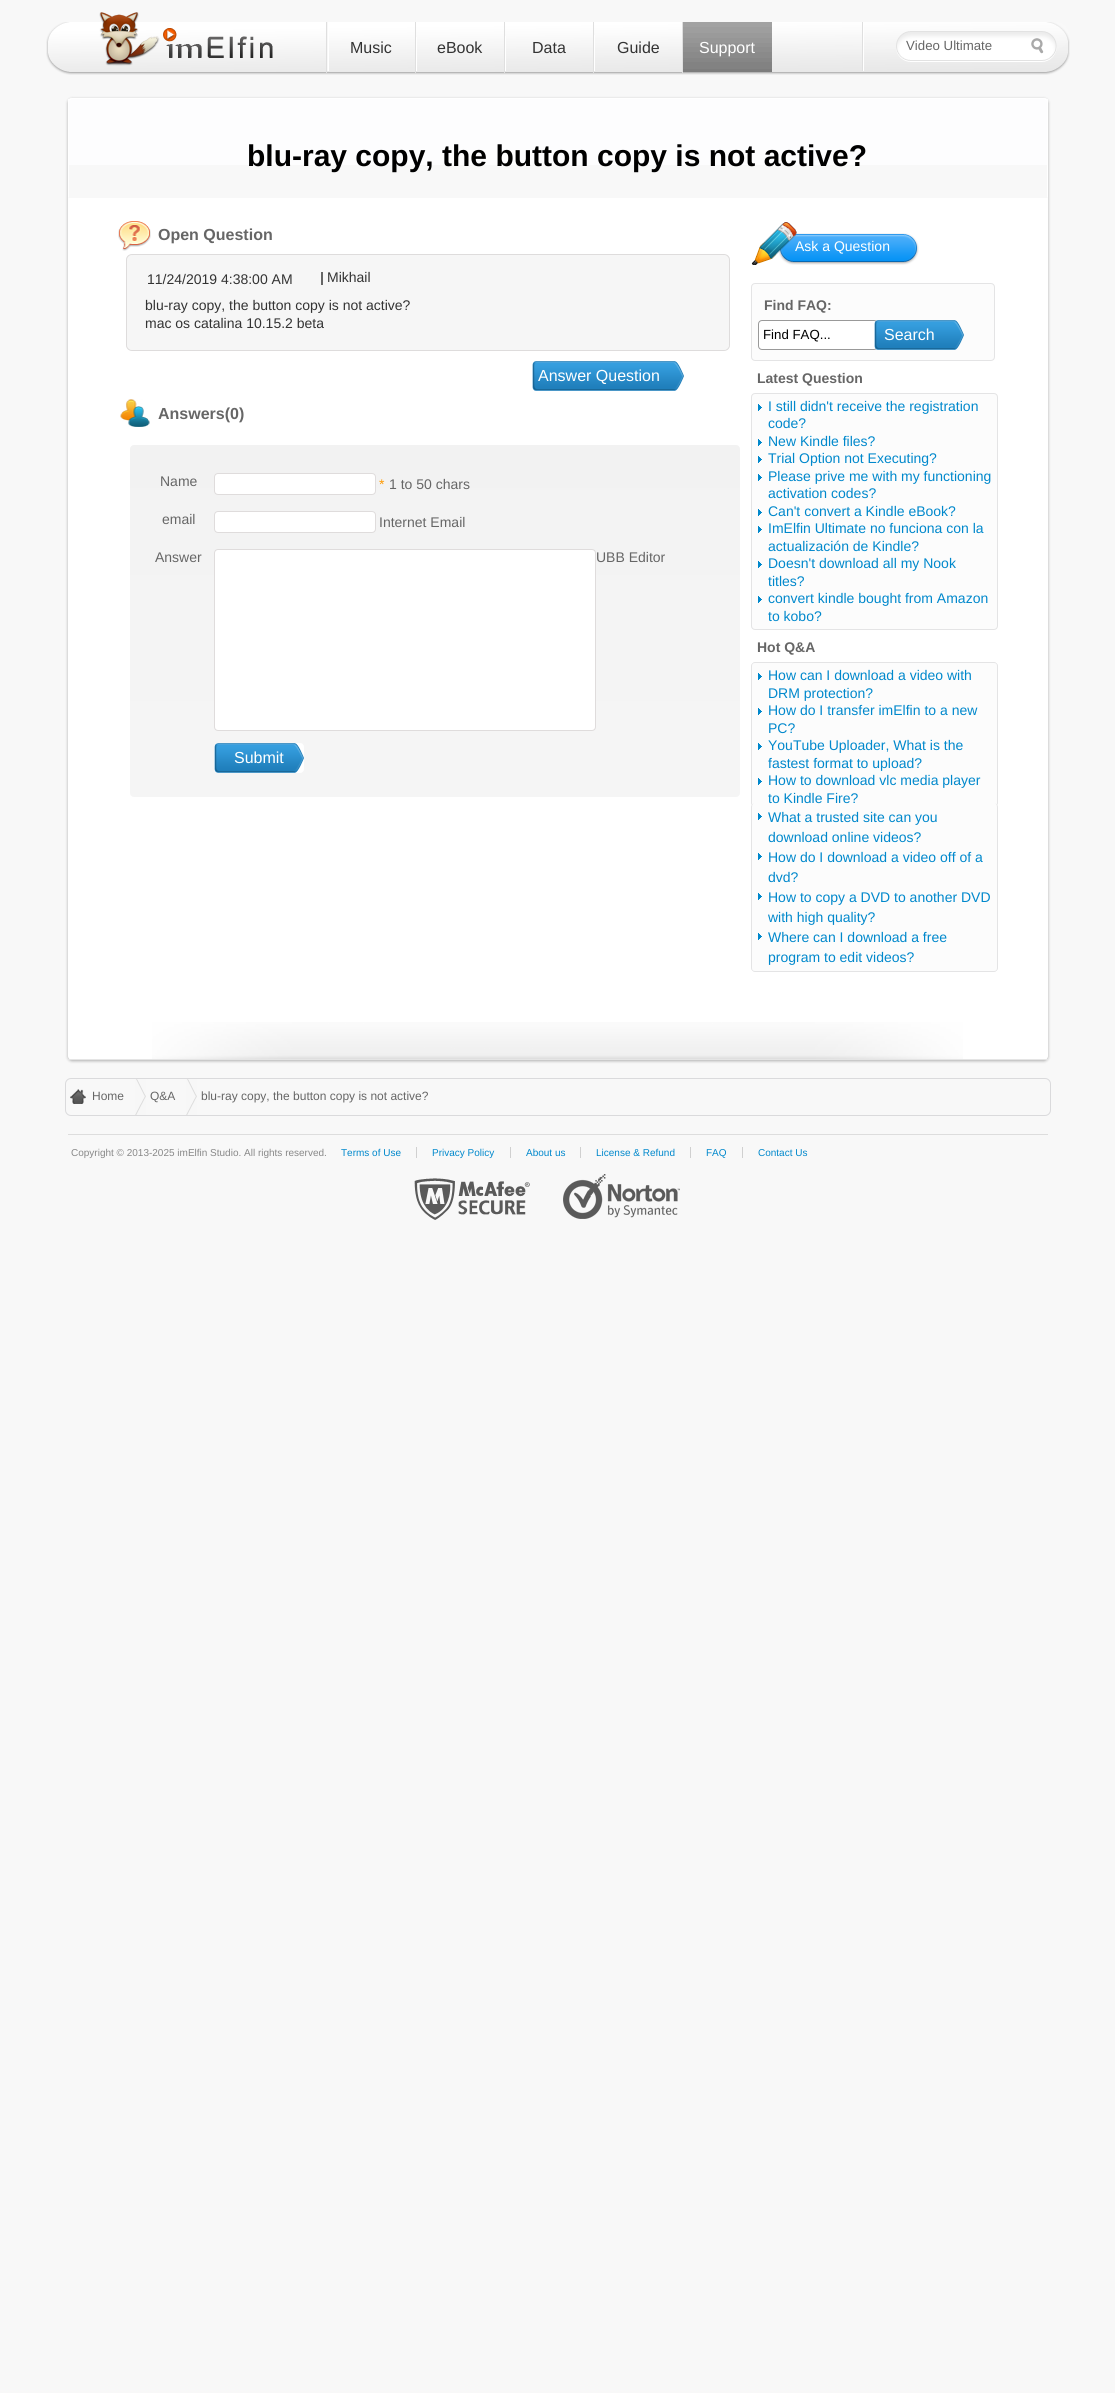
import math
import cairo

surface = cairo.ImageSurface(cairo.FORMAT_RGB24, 1115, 2393)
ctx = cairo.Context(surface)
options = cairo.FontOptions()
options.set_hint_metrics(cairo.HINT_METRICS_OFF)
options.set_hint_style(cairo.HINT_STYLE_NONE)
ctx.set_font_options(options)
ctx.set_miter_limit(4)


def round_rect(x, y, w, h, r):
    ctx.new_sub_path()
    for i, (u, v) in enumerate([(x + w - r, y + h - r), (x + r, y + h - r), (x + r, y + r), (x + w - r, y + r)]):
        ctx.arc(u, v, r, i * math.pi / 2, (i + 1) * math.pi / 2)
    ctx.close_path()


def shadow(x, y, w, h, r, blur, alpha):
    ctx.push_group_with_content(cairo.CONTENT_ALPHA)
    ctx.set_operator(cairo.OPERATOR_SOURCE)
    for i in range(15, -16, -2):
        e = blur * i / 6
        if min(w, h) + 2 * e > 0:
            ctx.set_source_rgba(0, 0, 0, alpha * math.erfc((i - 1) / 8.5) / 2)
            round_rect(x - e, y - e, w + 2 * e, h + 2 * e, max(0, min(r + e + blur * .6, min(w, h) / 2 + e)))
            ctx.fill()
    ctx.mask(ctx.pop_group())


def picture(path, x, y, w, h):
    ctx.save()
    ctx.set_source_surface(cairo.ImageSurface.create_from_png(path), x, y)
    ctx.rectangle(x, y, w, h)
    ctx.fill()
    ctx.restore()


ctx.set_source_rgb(0.969, 0.969, 0.969)
ctx.paint()
picture("img1.png", 46, 22, 1024, 53)
picture("img2.png", 99, 12, 174, 54)
picture("img3.png", 862, 22, 2, 49)
ctx.set_source_rgb(0.875, 0.875, 0.875)
ctx.rectangle(326, 22, 1, 51)
ctx.fill()
picture("img4.png", 327, 22, 2, 49)
ctx.select_font_face("Liberation Sans")
ctx.set_font_size(16)
ctx.set_source_rgb(0.2, 0.2, 0.2)
ctx.move_to(350, 53)
ctx.show_text("Music")
ctx.set_source_rgb(0.875, 0.875, 0.875)
ctx.rectangle(415, 22, 1, 51)
ctx.fill()
ctx.set_source_rgb(1, 1, 1)
ctx.rectangle(416, 37, 1, 34)
ctx.fill()
ctx.set_source_rgb(0.2, 0.2, 0.2)
ctx.move_to(437, 53)
ctx.show_text("eBook")
ctx.set_source_rgb(0.875, 0.875, 0.875)
ctx.rectangle(504, 22, 1, 51)
ctx.fill()
ctx.set_source_rgb(1, 1, 1)
ctx.rectangle(505, 36, 1, 35)
ctx.fill()
ctx.set_source_rgb(0.2, 0.2, 0.2)
ctx.move_to(532, 53)
ctx.show_text("Data")
ctx.set_source_rgb(0.875, 0.875, 0.875)
ctx.rectangle(593, 22, 1, 51)
ctx.fill()
ctx.set_source_rgb(1, 1, 1)
ctx.rectangle(594, 35, 1, 36)
ctx.fill()
ctx.set_source_rgb(0.2, 0.2, 0.2)
ctx.move_to(617, 53)
ctx.show_text("Guide")
ctx.set_source_rgb(0.875, 0.875, 0.875)
ctx.rectangle(682, 22, 1, 51)
ctx.fill()
picture("img5.png", 683, 22, 89, 50)
ctx.set_source_rgb(1, 1, 1)
ctx.move_to(699, 53)
ctx.show_text("Support")
picture("img6.png", 896, 31, 161, 31)
ctx.set_font_size(13.25)
ctx.set_source_rgb(0.4, 0.4, 0.4)
ctx.move_to(906, 50)
ctx.show_text("Video Ultimate")
ctx.set_source_rgb(0, 0, 0)
shadow(68, 99, 980, 962, 4, 1.5, 0.3)
ctx.set_source_rgb(1, 1, 1)
round_rect(68, 98, 980, 962, 4)
ctx.fill()
ctx.set_source_rgb(0.969, 0.969, 0.969)
ctx.new_path()
ctx.move_to(72, 98)
ctx.line_to(1044, 98)
ctx.curve_to(1046, 98, 1048, 100, 1048, 102)
ctx.line_to(1048, 198)
ctx.line_to(68, 198)
ctx.line_to(68, 102)
ctx.curve_to(68, 100, 70, 98, 72, 98)
ctx.close_path()
ctx.fill()
ctx.set_source_rgb(0.992, 0.992, 0.996)
ctx.rectangle(68, 99, 980, 66)
ctx.fill()
ctx.set_source_rgb(1, 1, 1)
ctx.new_path()
ctx.move_to(72, 98)
ctx.line_to(69, 99)
ctx.line_to(70, 100)
ctx.line_to(72, 99)
ctx.line_to(1044, 99)
ctx.line_to(1046, 100)
ctx.line_to(1047, 99)
ctx.line_to(1044, 98)
ctx.close_path()
ctx.fill()
ctx.new_path()
ctx.move_to(1048, 198)
ctx.line_to(1048, 102)
ctx.line_to(1047, 99)
ctx.line_to(1046, 100)
ctx.line_to(1047, 102)
ctx.line_to(1047, 197)
ctx.close_path()
ctx.fill()
ctx.new_path()
ctx.move_to(68, 198)
ctx.line_to(69, 197)
ctx.line_to(69, 102)
ctx.line_to(70, 100)
ctx.line_to(69, 99)
ctx.line_to(68, 102)
ctx.close_path()
ctx.fill()
ctx.select_font_face("Liberation Sans", cairo.FONT_SLANT_NORMAL, cairo.FONT_WEIGHT_BOLD)
ctx.set_font_size(30)
ctx.set_source_rgb(0, 0, 0)
ctx.move_to(247, 166)
ctx.show_text("blu-ray copy, the button copy is not active?")
picture("img7.png", 152, 1022, 811, 37)
ctx.set_source_rgb(0.898, 0.898, 0.898)
ctx.rectangle(68, 1059, 980, 1)
ctx.fill()
picture("img8.png", 118, 221, 33, 30)
ctx.set_font_size(16)
ctx.set_source_rgb(0.4, 0.4, 0.4)
ctx.move_to(158, 240)
ctx.show_text("Open Question")
ctx.save()
round_rect(126, 254, 604, 97, 6)
ctx.clip()
gradient = cairo.LinearGradient(127, 255, 127, 350)
gradient.add_color_stop_rgba(0, 0.949, 0.949, 0.949, 1)
gradient.add_color_stop_rgba(0.5, 0.957, 0.957, 0.957, 1)
gradient.add_color_stop_rgba(1, 0.961, 0.961, 0.961, 1)
ctx.set_source(gradient)
ctx.rectangle(126, 255, 604, 95)
ctx.fill()
ctx.restore()
round_rect(126.5, 254.5, 603, 96, 5.5)
ctx.set_source_rgb(0.871, 0.863, 0.863)
ctx.set_line_width(1)
ctx.stroke()
ctx.set_source_rgb(0.961, 0.961, 0.961)
round_rect(127, 255, 602, 95, 6)
ctx.fill()
ctx.select_font_face("Liberation Sans")
ctx.set_font_size(14)
ctx.set_source_rgb(0.2, 0.2, 0.2)
ctx.move_to(147, 284)
ctx.show_text("11/24/2019 4:38:00 AM")
ctx.set_source_rgb(0.4, 0.4, 0.4)
ctx.rectangle(321, 272, 2, 13)
ctx.fill()
ctx.set_source_rgb(0.2, 0.2, 0.2)
ctx.move_to(327, 282)
ctx.show_text("Mikhail")
ctx.move_to(145, 310)
ctx.show_text("blu-ray copy, the button copy is not active?")
ctx.move_to(145, 328)
ctx.show_text("mac os catalina 10.15.2 beta")
picture("img9.png", 532, 361, 152, 30)
ctx.set_font_size(16)
ctx.set_source_rgb(1, 1, 1)
ctx.move_to(538, 381)
ctx.show_text("Answer Question")
picture("img10.png", 120, 399, 30, 28)
ctx.select_font_face("Liberation Sans", cairo.FONT_SLANT_NORMAL, cairo.FONT_WEIGHT_BOLD)
ctx.set_source_rgb(0.4, 0.4, 0.4)
ctx.move_to(158, 419)
ctx.show_text("Answers(0)")
gradient = cairo.LinearGradient(130, 445, 130, 797)
gradient.add_color_stop_rgba(0, 0.949, 0.949, 0.949, 1)
gradient.add_color_stop_rgba(0.5, 0.957, 0.957, 0.957, 1)
gradient.add_color_stop_rgba(1, 0.961, 0.961, 0.961, 1)
ctx.set_source(gradient)
round_rect(130, 445, 610, 352, 4)
ctx.fill()
ctx.select_font_face("Liberation Sans")
ctx.set_font_size(14)
ctx.set_source_rgb(0.4, 0.4, 0.4)
ctx.move_to(160, 486)
ctx.show_text("Name")
ctx.set_source_rgb(1, 1, 1)
round_rect(214.5, 473.5, 161, 21, 3.5)
ctx.fill_preserve()
ctx.set_source_rgb(0.875, 0.863, 0.863)
ctx.stroke()
ctx.set_source_rgb(1, 0.6, 0)
ctx.move_to(379, 489)
ctx.show_text("*")
ctx.set_source_rgb(0.4, 0.4, 0.4)
ctx.move_to(389, 489)
ctx.show_text("1 to 50 chars")
ctx.move_to(162, 524)
ctx.show_text("email")
ctx.set_source_rgb(1, 1, 1)
round_rect(214.5, 511.5, 161, 21, 3.5)
ctx.fill_preserve()
ctx.set_source_rgb(0.875, 0.863, 0.863)
ctx.stroke()
ctx.set_source_rgb(0.4, 0.4, 0.4)
ctx.move_to(379, 527)
ctx.show_text("Internet Email")
ctx.move_to(155, 562)
ctx.show_text("Answer")
ctx.set_source_rgb(1, 1, 1)
round_rect(214.5, 549.5, 381, 181, 3.5)
ctx.fill_preserve()
ctx.set_source_rgb(0.875, 0.863, 0.863)
ctx.stroke()
ctx.set_source_rgb(0.4, 0.4, 0.4)
ctx.move_to(596, 562)
ctx.show_text("UBB Editor")
ctx.set_source_rgb(1, 1, 1)
round_rect(214, 743, 90, 30, 4)
ctx.fill()
picture("img11.png", 214, 743, 90, 30)
ctx.set_font_size(16)
ctx.move_to(234, 763)
ctx.show_text("Submit")
picture("img12.png", 751, 222, 168, 43)
ctx.set_font_size(14)
ctx.move_to(795, 251)
ctx.show_text("Ask a Question")
ctx.set_source_rgb(0.988, 0.988, 0.988)
round_rect(751.5, 283.5, 243, 77, 3.5)
ctx.fill_preserve()
ctx.set_source_rgb(0.894, 0.894, 0.898)
ctx.stroke()
ctx.select_font_face("Liberation Sans", cairo.FONT_SLANT_NORMAL, cairo.FONT_WEIGHT_BOLD)
ctx.set_source_rgb(0.4, 0.4, 0.4)
ctx.move_to(764, 310)
ctx.show_text("Find FAQ:")
ctx.set_source_rgb(1, 1, 1)
round_rect(758.5, 320.5, 119, 29, 3.5)
ctx.fill_preserve()
ctx.set_source_rgb(0.6, 0.6, 0.6)
ctx.stroke()
ctx.select_font_face("Liberation Sans")
ctx.set_font_size(13.25)
ctx.set_source_rgb(0, 0, 0)
ctx.move_to(763, 339)
ctx.show_text("Find FAQ...")
picture("img13.png", 874, 320, 90, 30)
ctx.set_font_size(16)
ctx.set_source_rgb(1, 1, 1)
ctx.move_to(884, 340)
ctx.show_text("Search")
ctx.select_font_face("Liberation Sans", cairo.FONT_SLANT_NORMAL, cairo.FONT_WEIGHT_BOLD)
ctx.set_font_size(14)
ctx.set_source_rgb(0.4, 0.4, 0.4)
ctx.move_to(757, 383)
ctx.show_text("Latest Question")
ctx.set_source_rgb(0.988, 0.988, 0.988)
round_rect(751.5, 393.5, 246, 236, 3.5)
ctx.fill_preserve()
ctx.set_source_rgb(0.894, 0.894, 0.898)
ctx.stroke()
picture("img14.png", 758, 404, 4, 7)
ctx.select_font_face("Liberation Sans")
ctx.set_source_rgb(0, 0.533, 0.8)
ctx.move_to(768, 411)
ctx.show_text("I still didn't receive the registration")
ctx.move_to(768, 428)
ctx.show_text("code?")
picture("img14.png", 758, 439, 4, 7)
ctx.move_to(768, 446)
ctx.show_text("New Kindle files?")
picture("img14.png", 758, 456, 4, 7)
ctx.move_to(768, 463)
ctx.show_text("Trial Option not Executing?")
picture("img14.png", 758, 474, 4, 7)
ctx.move_to(768, 481)
ctx.show_text("Please prive me with my functioning")
ctx.move_to(768, 498)
ctx.show_text("activation codes?")
picture("img14.png", 758, 509, 4, 7)
ctx.move_to(768, 516)
ctx.show_text("Can't convert a Kindle eBook?")
picture("img14.png", 758, 526, 4, 7)
ctx.move_to(768, 533)
ctx.show_text("ImElfin Ultimate no funciona con la")
ctx.move_to(768, 551)
ctx.show_text("actualización de Kindle?")
picture("img14.png", 758, 561, 4, 7)
ctx.move_to(768, 568)
ctx.show_text("Doesn't download all my Nook")
ctx.move_to(768, 586)
ctx.show_text("titles?")
picture("img14.png", 758, 596, 4, 7)
ctx.move_to(768, 603)
ctx.show_text("convert kindle bought from Amazon")
ctx.move_to(768, 621)
ctx.show_text("to kobo?")
ctx.select_font_face("Liberation Sans", cairo.FONT_SLANT_NORMAL, cairo.FONT_WEIGHT_BOLD)
ctx.set_source_rgb(0.4, 0.4, 0.4)
ctx.move_to(757, 652)
ctx.show_text("Hot Q&A")
ctx.set_source_rgb(0.988, 0.988, 0.988)
round_rect(751, 662, 247, 145, 4)
ctx.fill()
ctx.set_source_rgb(0.894, 0.894, 0.898)
ctx.set_fill_rule(cairo.FILL_RULE_EVEN_ODD)
ctx.new_path()
ctx.move_to(755, 662)
ctx.line_to(994, 662)
ctx.curve_to(996, 662, 998, 664, 998, 666)
ctx.line_to(998, 803)
ctx.curve_to(998, 805, 996, 807, 994, 807)
ctx.line_to(755, 807)
ctx.curve_to(753, 807, 751, 805, 751, 803)
ctx.line_to(751, 666)
ctx.curve_to(751, 664, 753, 662, 755, 662)
ctx.close_path()
ctx.move_to(755, 663)
ctx.line_to(994, 663)
ctx.curve_to(996, 663, 997, 664, 997, 666)
ctx.line_to(997, 803)
ctx.curve_to(997, 805, 996, 807, 994, 807)
ctx.line_to(755, 807)
ctx.curve_to(753, 807, 752, 805, 752, 803)
ctx.line_to(752, 666)
ctx.curve_to(752, 664, 753, 663, 755, 663)
ctx.close_path()
ctx.fill()
picture("img14.png", 758, 673, 4, 7)
ctx.select_font_face("Liberation Sans")
ctx.set_source_rgb(0, 0.533, 0.8)
ctx.move_to(768, 680)
ctx.show_text("How can I download a video with")
ctx.move_to(768, 698)
ctx.show_text("DRM protection?")
picture("img14.png", 758, 708, 4, 7)
ctx.move_to(768, 715)
ctx.show_text("How do I transfer imElfin to a new")
ctx.move_to(768, 733)
ctx.show_text("PC?")
picture("img14.png", 758, 743, 4, 7)
ctx.move_to(768, 750)
ctx.show_text("YouTube Uploader, What is the")
ctx.move_to(768, 768)
ctx.show_text("fastest format to upload?")
picture("img14.png", 758, 778, 4, 7)
ctx.move_to(768, 785)
ctx.show_text("How to download vlc media player")
ctx.set_source_rgb(0.988, 0.988, 0.988)
round_rect(751, 803, 247, 169, 4)
ctx.fill()
ctx.set_source_rgb(0.894, 0.894, 0.898)
ctx.new_path()
ctx.move_to(755, 803)
ctx.line_to(994, 803)
ctx.curve_to(996, 803, 998, 805, 998, 807)
ctx.line_to(998, 968)
ctx.curve_to(998, 970, 996, 972, 994, 972)
ctx.line_to(755, 972)
ctx.curve_to(753, 972, 751, 970, 751, 968)
ctx.line_to(751, 807)
ctx.curve_to(751, 805, 753, 803, 755, 803)
ctx.close_path()
ctx.move_to(755, 803)
ctx.line_to(994, 803)
ctx.curve_to(996, 803, 997, 805, 997, 807)
ctx.line_to(997, 968)
ctx.curve_to(997, 970, 996, 971, 994, 971)
ctx.line_to(755, 971)
ctx.curve_to(753, 971, 752, 970, 752, 968)
ctx.line_to(752, 807)
ctx.curve_to(752, 805, 753, 803, 755, 803)
ctx.close_path()
ctx.fill()
ctx.set_source_rgb(0, 0.533, 0.8)
ctx.move_to(768, 803)
ctx.show_text("to Kindle Fire?")
picture("img14.png", 758, 813, 4, 7)
ctx.move_to(768, 822)
ctx.show_text("What a trusted site can you")
ctx.move_to(768, 842)
ctx.show_text("download online videos?")
picture("img14.png", 758, 853, 4, 7)
ctx.move_to(768, 862)
ctx.show_text("How do I download a video off of a")
ctx.move_to(768, 882)
ctx.show_text("dvd?")
picture("img14.png", 758, 893, 4, 7)
ctx.move_to(768, 902)
ctx.show_text("How to copy a DVD to another DVD")
ctx.move_to(768, 922)
ctx.show_text("with high quality?")
picture("img14.png", 758, 933, 4, 7)
ctx.move_to(768, 942)
ctx.show_text("Where can I download a free")
ctx.move_to(768, 962)
ctx.show_text("program to edit videos?")
round_rect(65.5, 1078.5, 985, 37, 5.5)
ctx.set_source_rgb(0.855, 0.855, 0.863)
ctx.stroke()
picture("img15.png", 70, 1089, 16, 15)
ctx.set_font_size(12)
ctx.set_source_rgb(0.4, 0.4, 0.4)
ctx.move_to(92, 1100)
ctx.show_text("Home")
picture("img16.png", 135, 1079, 11, 36)
ctx.move_to(150, 1100)
ctx.show_text("Q&A")
picture("img16.png", 186, 1079, 11, 36)
ctx.move_to(201, 1100)
ctx.show_text("blu-ray copy, the button copy is not active?")
ctx.set_source_rgb(0.867, 0.867, 0.867)
ctx.rectangle(68, 1134, 980, 1)
ctx.fill()
ctx.set_font_size(10)
ctx.set_source_rgb(0.533, 0.533, 0.533)
ctx.move_to(71, 1156)
ctx.show_text("Copyright © 2013-2025 imElfin Studio. All rights reserved.")
ctx.set_source_rgb(0, 0.533, 0.8)
ctx.move_to(341, 1156)
ctx.show_text("Terms of Use")
ctx.move_to(432, 1156)
ctx.show_text("Privacy Policy")
ctx.set_source_rgb(0.816, 0.816, 0.816)
ctx.rectangle(416, 1147, 1, 11)
ctx.fill()
ctx.set_source_rgb(0, 0.533, 0.8)
ctx.move_to(526, 1156)
ctx.show_text("About us")
ctx.set_source_rgb(0.816, 0.816, 0.816)
ctx.rectangle(510, 1147, 1, 11)
ctx.fill()
ctx.set_source_rgb(0, 0.533, 0.8)
ctx.move_to(596, 1156)
ctx.show_text("License & Refund")
ctx.set_source_rgb(0.816, 0.816, 0.816)
ctx.rectangle(580, 1147, 1, 11)
ctx.fill()
ctx.set_source_rgb(0, 0.533, 0.8)
ctx.move_to(706, 1156)
ctx.show_text("FAQ")
ctx.set_source_rgb(0.816, 0.816, 0.816)
ctx.rectangle(690, 1147, 1, 11)
ctx.fill()
ctx.set_source_rgb(0, 0.533, 0.8)
ctx.move_to(758, 1156)
ctx.show_text("Contact Us")
ctx.set_source_rgb(0.816, 0.816, 0.816)
ctx.rectangle(742, 1147, 1, 11)
ctx.fill()
picture("img17.png", 414, 1178, 116, 42)
picture("img18.png", 563, 1174, 117, 45)
surface.write_to_png("page.png")
